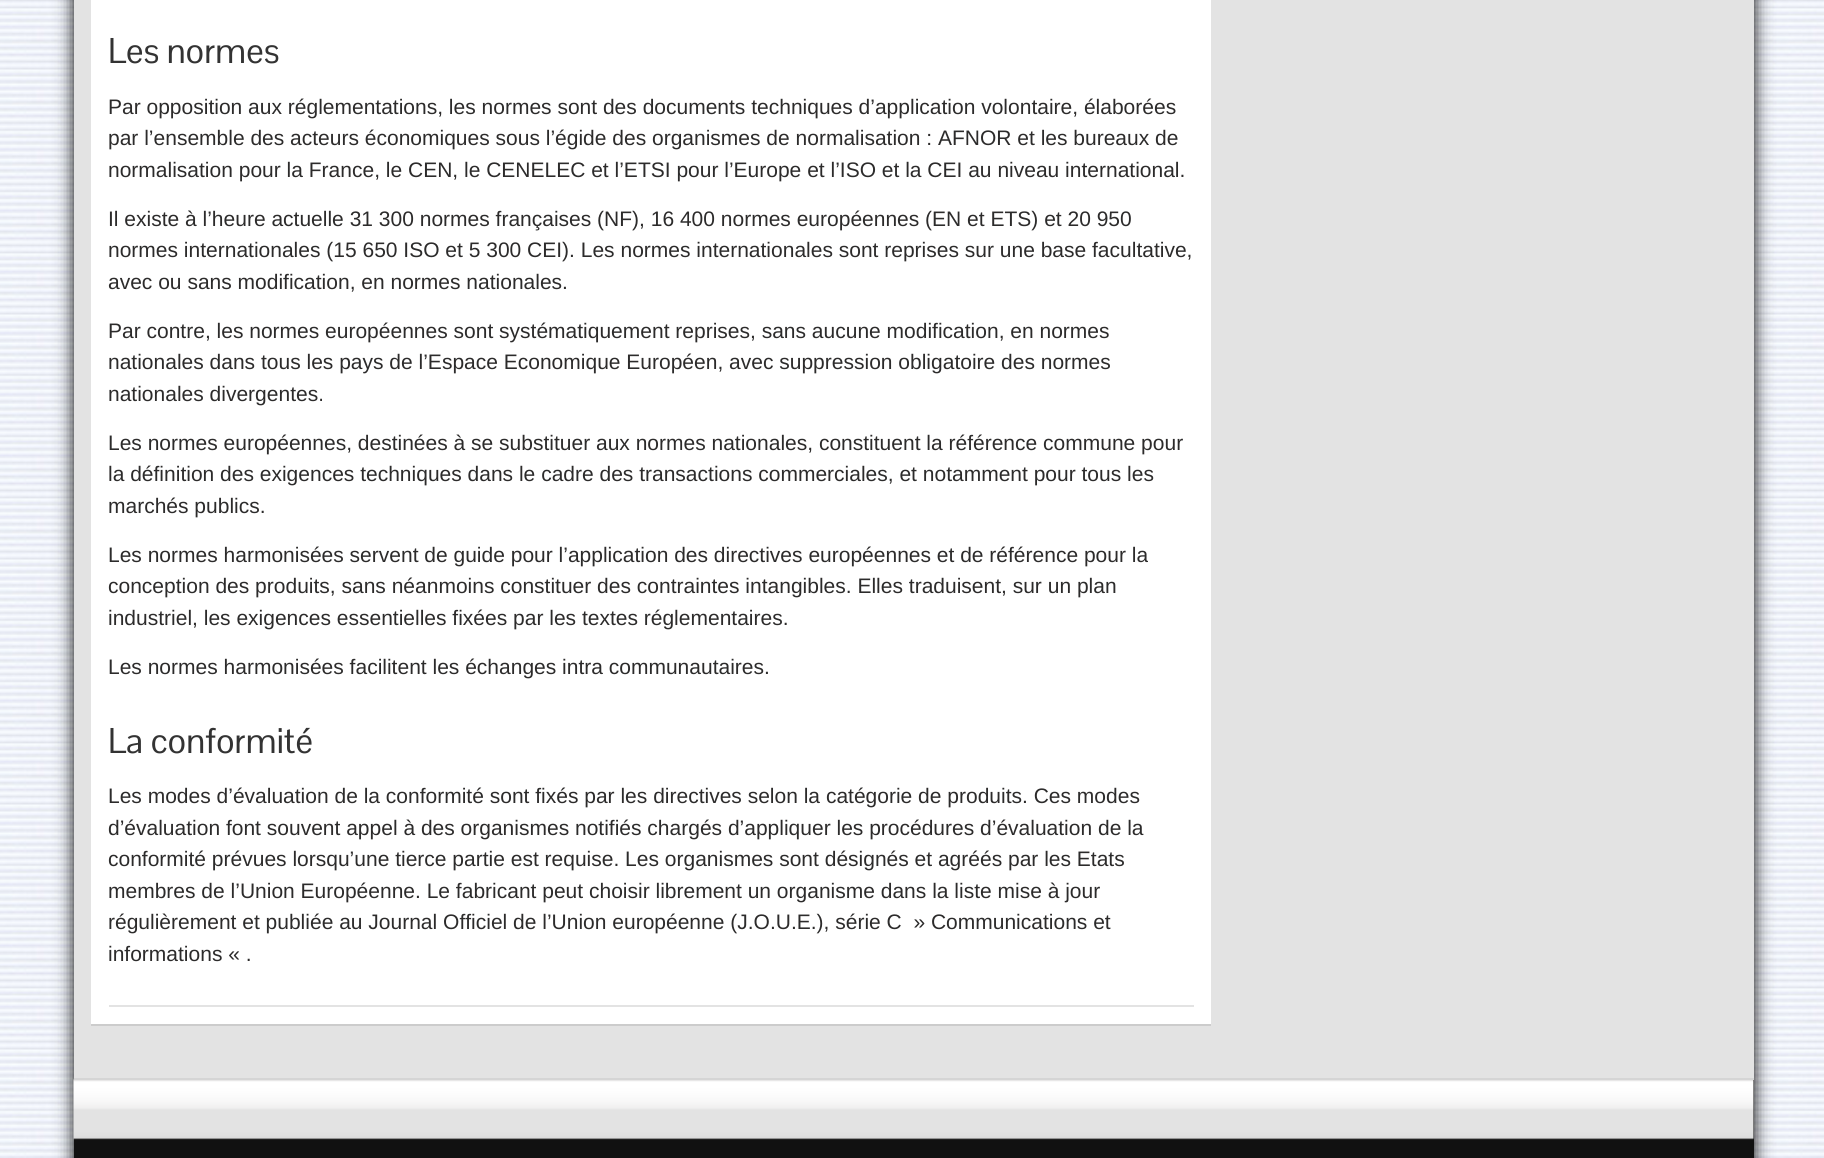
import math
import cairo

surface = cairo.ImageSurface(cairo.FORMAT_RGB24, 1824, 1158)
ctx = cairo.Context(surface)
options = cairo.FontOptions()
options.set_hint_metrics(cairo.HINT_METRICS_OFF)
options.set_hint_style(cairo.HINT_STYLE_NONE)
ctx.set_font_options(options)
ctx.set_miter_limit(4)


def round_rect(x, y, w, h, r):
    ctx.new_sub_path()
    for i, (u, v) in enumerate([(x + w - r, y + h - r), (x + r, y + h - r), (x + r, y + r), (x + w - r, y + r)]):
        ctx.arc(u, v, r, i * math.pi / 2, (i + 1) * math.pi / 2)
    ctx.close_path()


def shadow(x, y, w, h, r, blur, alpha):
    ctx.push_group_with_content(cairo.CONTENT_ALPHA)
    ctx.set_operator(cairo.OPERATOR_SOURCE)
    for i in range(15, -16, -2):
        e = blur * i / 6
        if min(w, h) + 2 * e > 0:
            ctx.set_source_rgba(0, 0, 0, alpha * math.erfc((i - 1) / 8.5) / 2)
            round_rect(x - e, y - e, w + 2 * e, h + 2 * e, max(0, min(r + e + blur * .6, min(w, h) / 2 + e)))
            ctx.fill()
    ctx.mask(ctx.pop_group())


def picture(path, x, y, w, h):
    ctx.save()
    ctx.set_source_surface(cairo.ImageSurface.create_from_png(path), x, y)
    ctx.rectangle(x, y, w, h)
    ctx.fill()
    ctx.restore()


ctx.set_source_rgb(1, 1, 1)
ctx.paint()
picture("img1.png", 0, 0, 1824, 1158)
ctx.set_source_rgb(0, 0, 0)
shadow(74, -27, 1680, 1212, 0, 9, 1)
ctx.set_source_rgb(0.89, 0.89, 0.89)
ctx.rectangle(74, 0, 1680, 1078)
ctx.fill()
ctx.set_source_rgb(1, 1, 1)
ctx.rectangle(91, 0, 1120, 1024)
ctx.fill()
ctx.set_source_rgb(0.8, 0.8, 0.8)
ctx.rectangle(91, 1024, 1120, 2)
ctx.fill()
ctx.select_font_face("Pontano Sans")
ctx.set_font_size(35)
ctx.set_source_rgb(0.2, 0.2, 0.2)
ctx.move_to(108, 63)
ctx.show_text("Les normes")
ctx.select_font_face("Liberation Sans")
ctx.set_font_size(21)
ctx.set_source_rgb(0.173, 0.169, 0.169)
ctx.move_to(108, 114)
ctx.show_text("Par opposition aux réglementations, les normes sont des documents techniques d’application volontaire, élaborées")
ctx.move_to(108, 145)
ctx.show_text("par l’ensemble des acteurs économiques sous l’égide des organismes de normalisation : AFNOR et les bureaux de")
ctx.move_to(108, 177)
ctx.show_text("normalisation pour la France, le CEN, le CENELEC et l’ETSI pour l’Europe et l’ISO et la CEI au niveau international.")
ctx.move_to(108, 226)
ctx.show_text("Il existe à l’heure actuelle 31 300 normes françaises (NF), 16 400 normes européennes (EN et ETS) et 20 950")
ctx.move_to(108, 257)
ctx.show_text("normes internationales (15 650 ISO et 5 300 CEI). Les normes internationales sont reprises sur une base facultative,")
ctx.move_to(108, 289)
ctx.show_text("avec ou sans modification, en normes nationales.")
ctx.move_to(108, 338)
ctx.show_text("Par contre, les normes européennes sont systématiquement reprises, sans aucune modification, en normes")
ctx.move_to(108, 369)
ctx.show_text("nationales dans tous les pays de l’Espace Economique Européen, avec suppression obligatoire des normes")
ctx.move_to(108, 401)
ctx.show_text("nationales divergentes.")
ctx.move_to(108, 450)
ctx.show_text("Les normes européennes, destinées à se substituer aux normes nationales, constituent la référence commune pour")
ctx.move_to(108, 481)
ctx.show_text("la définition des exigences techniques dans le cadre des transactions commerciales, et notamment pour tous les")
ctx.move_to(108, 513)
ctx.show_text("marchés publics.")
ctx.move_to(108, 562)
ctx.show_text("Les normes harmonisées servent de guide pour l’application des directives européennes et de référence pour la")
ctx.move_to(108, 593)
ctx.show_text("conception des produits, sans néanmoins constituer des contraintes intangibles. Elles traduisent, sur un plan")
ctx.move_to(108, 625)
ctx.show_text("industriel, les exigences essentielles fixées par les textes réglementaires.")
ctx.move_to(108, 674)
ctx.show_text("Les normes harmonisées facilitent les échanges intra communautaires.")
ctx.select_font_face("Pontano Sans")
ctx.set_font_size(35)
ctx.set_source_rgb(0.2, 0.2, 0.2)
ctx.move_to(108, 753)
ctx.show_text("La conformité")
ctx.select_font_face("Liberation Sans")
ctx.set_font_size(21)
ctx.set_source_rgb(0.173, 0.169, 0.169)
ctx.move_to(108, 803)
ctx.show_text("Les modes d’évaluation de la conformité sont fixés par les directives selon la catégorie de produits. Ces modes")
ctx.move_to(108, 835)
ctx.show_text("d’évaluation font souvent appel à des organismes notifiés chargés d’appliquer les procédures d’évaluation de la")
ctx.move_to(108, 866)
ctx.show_text("conformité prévues lorsqu’une tierce partie est requise. Les organismes sont désignés et agréés par les Etats")
ctx.move_to(108, 898)
ctx.show_text("membres de l’Union Européenne. Le fabricant peut choisir librement un organisme dans la liste mise à jour")
ctx.move_to(108, 929)
ctx.show_text("régulièrement et publiée au Journal Officiel de l’Union européenne (J.O.U.E.), série C  » Communications et")
ctx.move_to(108, 961)
ctx.show_text("informations « .")
ctx.set_source_rgb(0.89, 0.89, 0.89)
ctx.rectangle(109, 1005, 1085, 2)
ctx.fill()
ctx.set_source_rgb(0.067, 0.067, 0.067)
ctx.rectangle(74, 1080, 1680, 78)
ctx.fill()
picture("img2.png", 73, 1078, 1681, 62)
ctx.set_source_rgb(0.835, 0.835, 0.835)
ctx.rectangle(74, 1078, 1680, 2)
ctx.fill()
surface.write_to_png("page.png")
